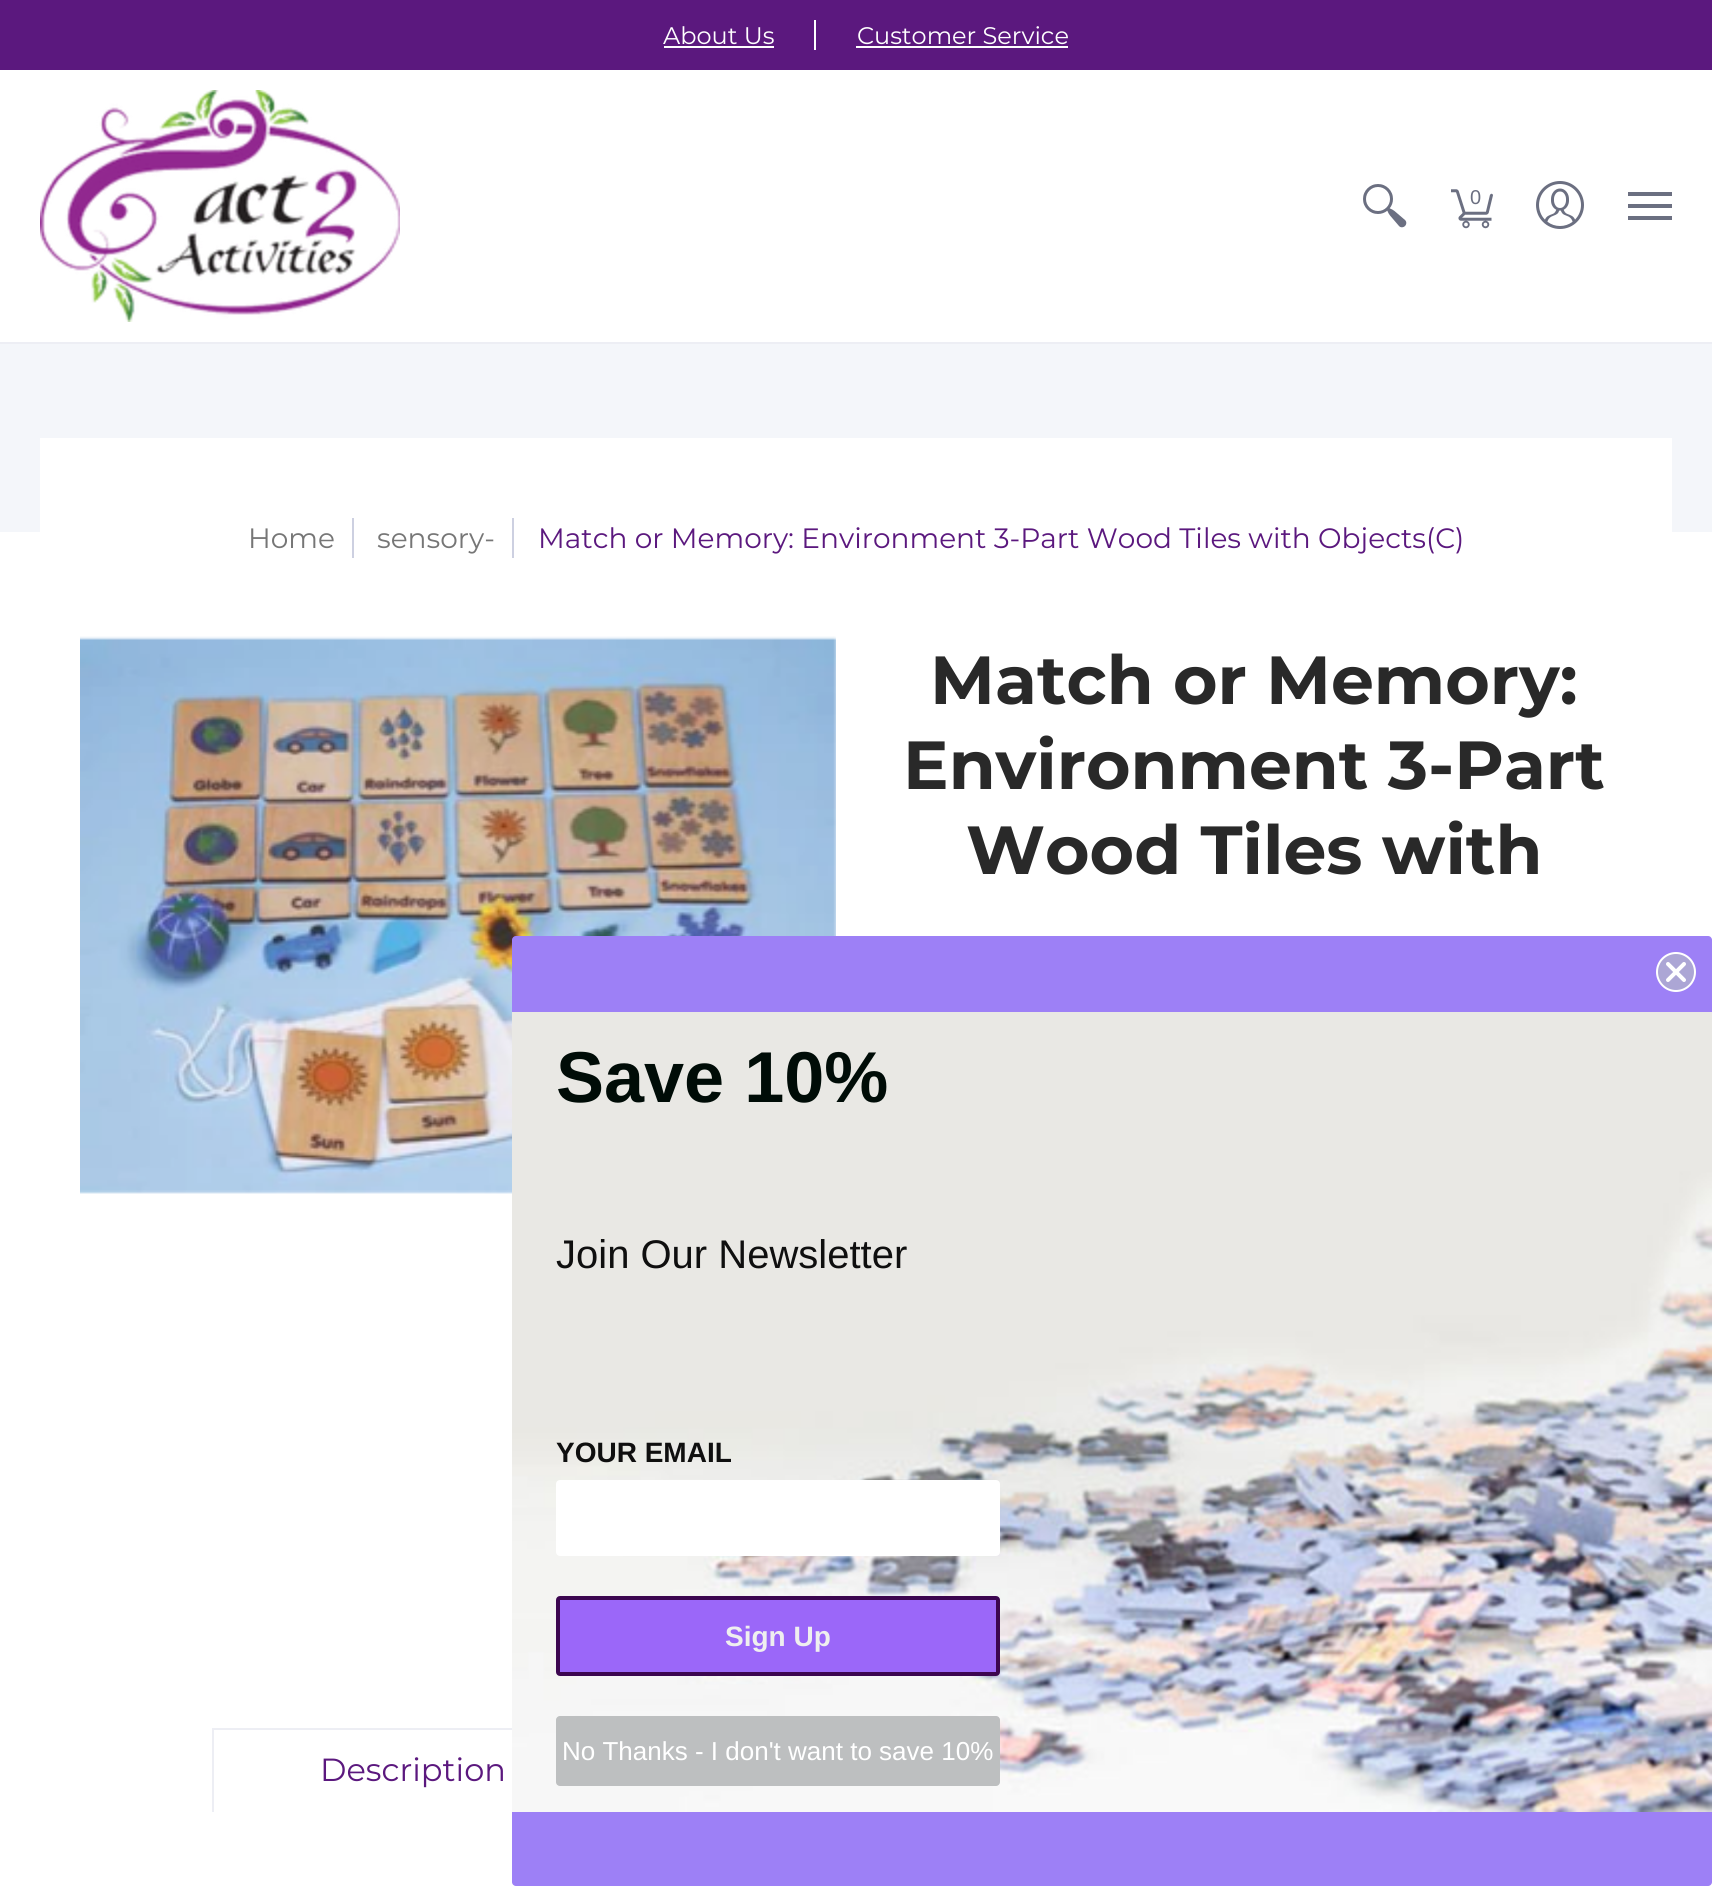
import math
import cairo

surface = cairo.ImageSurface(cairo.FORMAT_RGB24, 1712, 1886)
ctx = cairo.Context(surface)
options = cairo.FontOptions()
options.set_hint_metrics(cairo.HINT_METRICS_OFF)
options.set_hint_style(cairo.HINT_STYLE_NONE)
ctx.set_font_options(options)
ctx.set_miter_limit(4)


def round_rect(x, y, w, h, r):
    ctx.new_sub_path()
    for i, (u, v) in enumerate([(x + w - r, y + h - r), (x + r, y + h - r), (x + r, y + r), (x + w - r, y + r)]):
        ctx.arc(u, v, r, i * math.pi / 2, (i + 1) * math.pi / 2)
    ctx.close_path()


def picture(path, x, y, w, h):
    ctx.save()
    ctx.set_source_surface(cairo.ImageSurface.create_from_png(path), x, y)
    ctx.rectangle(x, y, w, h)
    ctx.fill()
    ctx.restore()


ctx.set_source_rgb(1, 1, 1)
ctx.paint()
ctx.set_source_rgb(0.357, 0.094, 0.494)
ctx.rectangle(0, 0, 1712, 70)
ctx.fill()
ctx.select_font_face("Montserrat")
ctx.set_font_size(24)
ctx.set_source_rgb(1, 1, 1)
ctx.move_to(663, 44)
ctx.show_text("About Us")
ctx.rectangle(664, 46, 110, 2)
ctx.fill()
ctx.rectangle(814, 20, 2, 30)
ctx.fill()
ctx.move_to(857, 44)
ctx.show_text("Customer Service")
ctx.rectangle(856, 46, 212, 2)
ctx.fill()
ctx.set_source_rgb(0.929, 0.933, 0.957)
ctx.rectangle(0, 342, 1712, 2)
ctx.fill()
picture("img1.png", 40, 90, 360, 232)
picture("img2.png", 1363, 184, 44, 44)
picture("img3.png", 1451, 189, 42, 40)
ctx.select_font_face("Liberation Sans")
ctx.set_font_size(20)
ctx.set_source_rgb(0.42, 0.435, 0.506)
ctx.move_to(1470, 204)
ctx.show_text("0")
picture("img4.png", 1536, 181, 48, 48)
ctx.rectangle(1628, 192, 44, 4)
ctx.fill()
ctx.rectangle(1628, 216, 44, 4)
ctx.fill()
ctx.rectangle(1628, 204, 44, 4)
ctx.fill()
ctx.set_source_rgb(0.957, 0.961, 0.98)
ctx.rectangle(0, 344, 1712, 188)
ctx.fill()
ctx.set_source_rgb(1, 1, 1)
ctx.rectangle(40, 438, 1632, 94)
ctx.fill()
ctx.select_font_face("Montserrat")
ctx.set_font_size(28)
ctx.set_source_rgb(0.463, 0.463, 0.463)
ctx.move_to(248, 548)
ctx.show_text("Home")
ctx.set_source_rgb(0.804, 0.816, 0.882)
ctx.rectangle(352, 518, 2, 40)
ctx.fill()
ctx.set_source_rgb(0.463, 0.463, 0.463)
ctx.move_to(377, 548)
ctx.show_text("sensory-")
ctx.set_source_rgb(0.804, 0.816, 0.882)
ctx.rectangle(512, 518, 2, 40)
ctx.fill()
ctx.set_source_rgb(0.357, 0.094, 0.494)
ctx.move_to(538, 548)
ctx.show_text("Match or Memory: Environment 3-Part Wood Tiles with Objects(C)")
picture("img5.png", 80, 636, 756, 558)
ctx.select_font_face("Montserrat", cairo.FONT_SLANT_NORMAL, cairo.FONT_WEIGHT_BOLD)
ctx.set_font_size(68)
ctx.set_source_rgb(0.161, 0.161, 0.161)
ctx.move_to(930, 704)
ctx.show_text("Match or Memory:")
ctx.move_to(903, 789)
ctx.show_text("Environment 3-Part")
ctx.move_to(966, 874)
ctx.show_text("Wood Tiles with")
ctx.set_source_rgb(0.929, 0.933, 0.957)
ctx.rectangle(212, 1728, 300, 2)
ctx.fill()
ctx.rectangle(212, 1728, 2, 84)
ctx.fill()
ctx.select_font_face("Montserrat")
ctx.set_font_size(32)
ctx.set_source_rgb(0.357, 0.094, 0.494)
ctx.move_to(320, 1781)
ctx.show_text("Description")
ctx.set_source_rgb(0.616, 0.502, 0.961)
round_rect(512, 936, 1200, 950, 4)
ctx.fill()
ctx.set_source_rgb(0.675, 0.651, 0.835)
ctx.arc(1676, 972, 19, 0, 2 * math.pi)
ctx.fill_preserve()
ctx.set_source_rgb(1, 1, 1)
ctx.stroke()
ctx.new_path()
ctx.move_to(1668, 964)
ctx.line_to(1684, 980)
ctx.move_to(1668, 980)
ctx.line_to(1684, 964)
ctx.close_path()
ctx.set_line_width(4)
ctx.set_line_cap(cairo.LINE_CAP_ROUND)
ctx.set_line_join(cairo.LINE_JOIN_ROUND)
ctx.stroke()
picture("img6.png", 512, 1012, 1200, 800)
ctx.select_font_face("Liberation Sans", cairo.FONT_SLANT_NORMAL, cairo.FONT_WEIGHT_BOLD)
ctx.set_font_size(72)
ctx.set_source_rgb(0, 0.047, 0.031)
ctx.move_to(556, 1102)
ctx.show_text("Save 10%")
ctx.select_font_face("Liberation Sans")
ctx.set_font_size(40)
ctx.set_source_rgb(0.059, 0.059, 0.059)
ctx.move_to(556, 1268)
ctx.show_text("Join Our Newsletter")
ctx.select_font_face("Liberation Sans", cairo.FONT_SLANT_NORMAL, cairo.FONT_WEIGHT_BOLD)
ctx.set_font_size(28)
ctx.move_to(556, 1462)
ctx.show_text("YOUR EMAIL")
ctx.set_source_rgb(1, 1, 1)
round_rect(557, 1481, 442, 74, 3)
ctx.fill_preserve()
ctx.set_line_width(2)
ctx.set_line_cap(cairo.LINE_CAP_BUTT)
ctx.set_line_join(cairo.LINE_JOIN_MITER)
ctx.stroke()
ctx.set_source_rgb(0.608, 0.404, 0.973)
round_rect(558, 1598, 440, 76, 2)
ctx.fill_preserve()
ctx.set_source_rgb(0.235, 0.027, 0.314)
ctx.set_line_width(4)
ctx.stroke()
ctx.set_source_rgb(0.937, 0.937, 0.937)
ctx.move_to(725, 1646)
ctx.show_text("Sign Up")
ctx.set_source_rgb(0.741, 0.749, 0.753)
round_rect(556, 1716, 444, 70, 4)
ctx.fill()
ctx.select_font_face("Liberation Sans")
ctx.set_font_size(26)
ctx.set_source_rgb(1, 1, 1)
ctx.move_to(562, 1760)
ctx.show_text("No Thanks - I don't want to save 10%")
surface.write_to_png("page.png")
